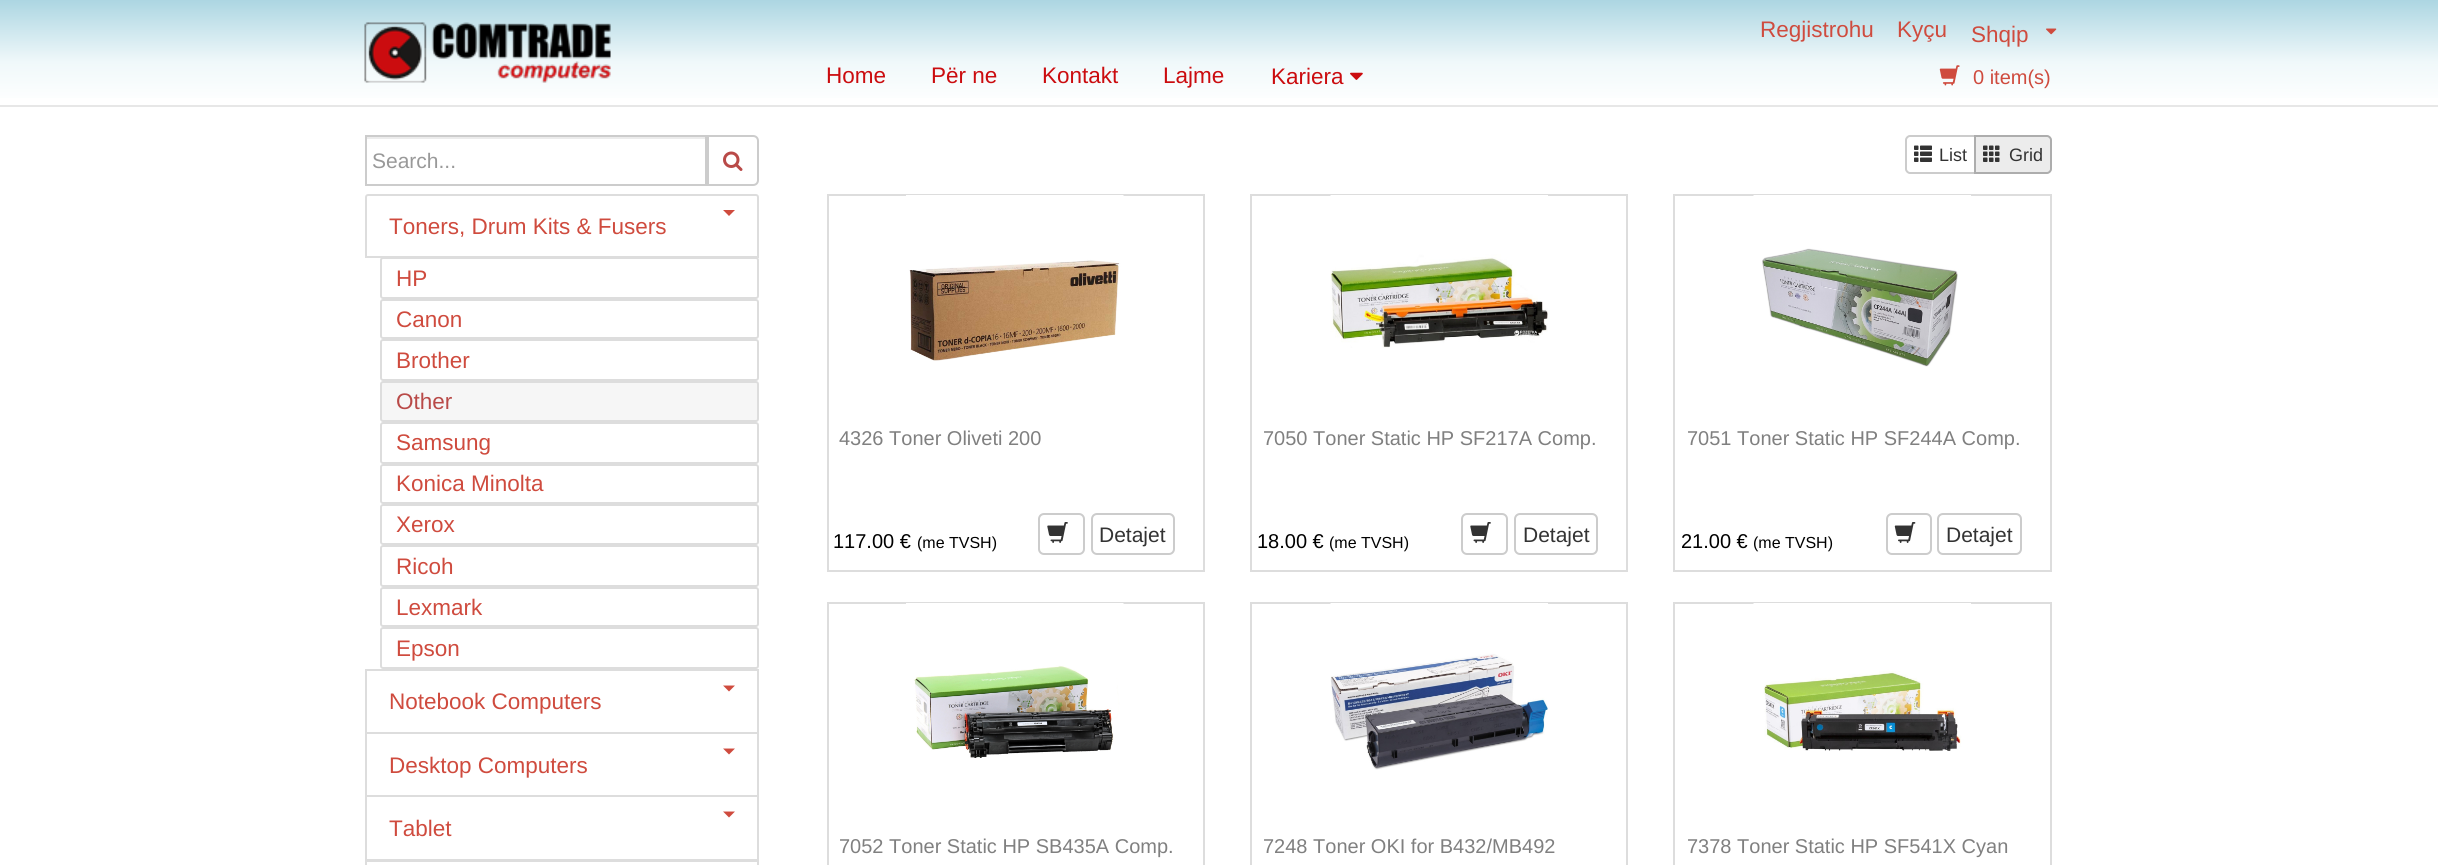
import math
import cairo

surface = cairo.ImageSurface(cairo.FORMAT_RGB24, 2438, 865)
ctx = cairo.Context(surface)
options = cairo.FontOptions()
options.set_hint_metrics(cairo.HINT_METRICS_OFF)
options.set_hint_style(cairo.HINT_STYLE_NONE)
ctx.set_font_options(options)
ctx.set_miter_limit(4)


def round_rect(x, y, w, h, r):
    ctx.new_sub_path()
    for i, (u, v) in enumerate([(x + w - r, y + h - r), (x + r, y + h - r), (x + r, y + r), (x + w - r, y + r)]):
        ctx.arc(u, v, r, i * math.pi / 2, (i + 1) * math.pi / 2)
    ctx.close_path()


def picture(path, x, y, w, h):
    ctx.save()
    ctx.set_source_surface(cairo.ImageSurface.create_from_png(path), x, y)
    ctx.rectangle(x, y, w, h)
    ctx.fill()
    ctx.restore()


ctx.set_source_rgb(1, 1, 1)
ctx.paint()
gradient = cairo.LinearGradient(1220, 0, 1220, 105)
gradient.add_color_stop_rgba(0, 0.675, 0.839, 0.886, 1)
gradient.add_color_stop_rgba(0.59, 0.941, 0.973, 0.98, 1)
gradient.add_color_stop_rgba(1, 1, 1, 1, 1)
ctx.set_source(gradient)
ctx.rectangle(0, 0, 2438, 98)
ctx.fill()
ctx.set_source_rgb(0.906, 0.906, 0.906)
ctx.rectangle(0, 105, 2438, 2)
ctx.fill()
picture("img1.png", 364, 22, 247, 61)
ctx.select_font_face("Liberation Sans")
ctx.set_font_size(22.5)
ctx.set_source_rgb(0.796, 0.047, 0.059)
ctx.move_to(826, 83)
ctx.show_text("Home")
ctx.move_to(931, 83)
ctx.show_text("Për ne")
ctx.move_to(1042, 83)
ctx.show_text("Kontakt")
ctx.move_to(1163, 83)
ctx.show_text("Lajme")
ctx.move_to(1271, 84)
ctx.show_text("Kariera")
picture("img2.png", 1350, 72, 13, 8)
ctx.set_source_rgb(0.812, 0.294, 0.243)
ctx.move_to(1760, 37)
ctx.show_text("Regjistrohu")
ctx.move_to(1897, 37)
ctx.show_text("Kyçu")
ctx.move_to(1971, 42)
ctx.show_text("Shqip")
picture("img3.png", 2046, 28, 11, 7)
picture("img4.png", 1939, 65, 21, 21)
ctx.set_font_size(20)
ctx.move_to(1973, 84)
ctx.show_text("0 item(s)")
ctx.set_source_rgb(0.925, 0.925, 0.925)
ctx.rectangle(366, 137, 339, 2)
ctx.fill()
ctx.rectangle(366, 136, 340, 49)
ctx.set_source_rgb(0.8, 0.8, 0.8)
ctx.stroke()
ctx.set_font_size(21)
ctx.set_source_rgb(0.6, 0.6, 0.6)
ctx.move_to(372, 168)
ctx.show_text("Search...")
ctx.new_path()
ctx.move_to(708, 136)
ctx.line_to(753, 136)
ctx.curve_to(756, 136, 758, 138, 758, 141)
ctx.line_to(758, 180)
ctx.curve_to(758, 183, 756, 185, 753, 185)
ctx.line_to(708, 185)
ctx.close_path()
ctx.set_source_rgb(0.8, 0.8, 0.8)
ctx.stroke()
picture("img5.png", 723, 151, 20, 20)
ctx.new_path()
ctx.move_to(368, 195)
ctx.line_to(756, 195)
ctx.curve_to(757, 195, 758, 196, 758, 197)
ctx.line_to(758, 257)
ctx.line_to(366, 257)
ctx.line_to(366, 197)
ctx.curve_to(366, 196, 367, 195, 368, 195)
ctx.close_path()
ctx.set_source_rgb(0.867, 0.867, 0.867)
ctx.stroke()
ctx.set_source_rgb(0.812, 0.294, 0.243)
ctx.new_path()
ctx.move_to(723, 210)
ctx.line_to(735, 210)
ctx.line_to(729, 216)
ctx.close_path()
ctx.fill()
ctx.set_font_size(22.5)
ctx.move_to(389, 234)
ctx.show_text("Toners, Drum Kits & Fusers")
ctx.set_source_rgb(1, 1, 1)
round_rect(381, 258, 377, 40, 2)
ctx.fill_preserve()
ctx.set_source_rgb(0.867, 0.867, 0.867)
ctx.stroke()
ctx.set_source_rgb(0.812, 0.294, 0.243)
ctx.move_to(396, 286)
ctx.show_text("HP")
round_rect(381, 300, 377, 38, 2)
ctx.set_source_rgb(0.867, 0.867, 0.867)
ctx.stroke()
ctx.set_source_rgb(0.812, 0.294, 0.243)
ctx.move_to(396, 327)
ctx.show_text("Canon")
round_rect(381, 340, 377, 40, 2)
ctx.set_source_rgb(0.867, 0.867, 0.867)
ctx.stroke()
ctx.set_source_rgb(0.812, 0.294, 0.243)
ctx.move_to(396, 368)
ctx.show_text("Brother")
ctx.set_source_rgb(0.961, 0.961, 0.961)
round_rect(381, 382, 377, 39, 2)
ctx.fill_preserve()
ctx.set_source_rgb(0.867, 0.867, 0.867)
ctx.stroke()
ctx.set_source_rgb(0.725, 0.29, 0.282)
ctx.move_to(396, 409)
ctx.show_text("Other")
round_rect(381, 423, 377, 40, 2)
ctx.set_source_rgb(0.867, 0.867, 0.867)
ctx.stroke()
ctx.set_source_rgb(0.812, 0.294, 0.243)
ctx.move_to(396, 450)
ctx.show_text("Samsung")
round_rect(381, 465, 377, 38, 2)
ctx.set_source_rgb(0.867, 0.867, 0.867)
ctx.stroke()
ctx.set_source_rgb(0.812, 0.294, 0.243)
ctx.move_to(396, 491)
ctx.show_text("Konica Minolta")
round_rect(381, 505, 377, 39, 2)
ctx.set_source_rgb(0.867, 0.867, 0.867)
ctx.stroke()
ctx.set_source_rgb(0.812, 0.294, 0.243)
ctx.move_to(396, 532)
ctx.show_text("Xerox")
round_rect(381, 546, 377, 40, 2)
ctx.set_source_rgb(0.867, 0.867, 0.867)
ctx.stroke()
ctx.set_source_rgb(0.812, 0.294, 0.243)
ctx.move_to(396, 574)
ctx.show_text("Ricoh")
round_rect(381, 588, 377, 38, 2)
ctx.set_source_rgb(0.867, 0.867, 0.867)
ctx.stroke()
ctx.set_source_rgb(0.812, 0.294, 0.243)
ctx.move_to(396, 615)
ctx.show_text("Lexmark")
round_rect(381, 628, 377, 40, 2)
ctx.set_source_rgb(0.867, 0.867, 0.867)
ctx.stroke()
ctx.set_source_rgb(0.812, 0.294, 0.243)
ctx.move_to(396, 656)
ctx.show_text("Epson")
ctx.rectangle(366, 670, 392, 63)
ctx.set_source_rgb(0.867, 0.867, 0.867)
ctx.stroke()
ctx.set_source_rgb(0.812, 0.294, 0.243)
ctx.new_path()
ctx.move_to(723, 685.5)
ctx.line_to(735, 685.5)
ctx.line_to(729, 691.5)
ctx.close_path()
ctx.fill()
ctx.move_to(389, 709)
ctx.show_text("Notebook Computers")
ctx.rectangle(366, 733, 392, 63)
ctx.set_source_rgb(0.867, 0.867, 0.867)
ctx.stroke()
ctx.set_source_rgb(0.812, 0.294, 0.243)
ctx.new_path()
ctx.move_to(723, 748.5)
ctx.line_to(735, 748.5)
ctx.line_to(729, 754.5)
ctx.close_path()
ctx.fill()
ctx.move_to(389, 773)
ctx.show_text("Desktop Computers")
ctx.rectangle(366, 796, 392, 64)
ctx.set_source_rgb(0.867, 0.867, 0.867)
ctx.stroke()
ctx.set_source_rgb(0.812, 0.294, 0.243)
ctx.new_path()
ctx.move_to(723, 811.5)
ctx.line_to(735, 811.5)
ctx.line_to(729, 817.5)
ctx.close_path()
ctx.fill()
ctx.move_to(389, 836)
ctx.show_text("Tablet")
ctx.rectangle(366, 861, 392, 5)
ctx.set_source_rgb(0.867, 0.867, 0.867)
ctx.stroke()
ctx.new_path()
ctx.move_to(1910, 136)
ctx.line_to(1975, 136)
ctx.line_to(1975, 173)
ctx.line_to(1910, 173)
ctx.curve_to(1908, 173, 1906, 171, 1906, 169)
ctx.line_to(1906, 140)
ctx.curve_to(1906, 138, 1908, 136, 1910, 136)
ctx.close_path()
ctx.set_source_rgb(0.8, 0.8, 0.8)
ctx.stroke()
picture("img6.png", 1914, 145, 18, 17)
ctx.set_font_size(18)
ctx.set_source_rgb(0.2, 0.2, 0.2)
ctx.move_to(1939, 161)
ctx.show_text("List")
ctx.set_source_rgb(0.922, 0.922, 0.922)
ctx.new_path()
ctx.move_to(1975, 136)
ctx.line_to(2047, 136)
ctx.curve_to(2049, 136, 2051, 138, 2051, 140)
ctx.line_to(2051, 169)
ctx.curve_to(2051, 171, 2049, 173, 2047, 173)
ctx.line_to(1975, 173)
ctx.close_path()
ctx.fill_preserve()
ctx.set_source_rgb(0.678, 0.678, 0.678)
ctx.stroke()
picture("img7.png", 1983, 145, 17, 17)
ctx.set_source_rgb(0.2, 0.2, 0.2)
ctx.move_to(2009, 161)
ctx.show_text("Grid")
ctx.rectangle(828, 195, 376, 376)
ctx.set_source_rgb(0.867, 0.867, 0.867)
ctx.stroke()
picture("img8.png", 906, 195, 218, 166)
ctx.set_font_size(20)
ctx.set_source_rgb(0.502, 0.502, 0.502)
ctx.move_to(839, 445)
ctx.show_text("4326 Toner Oliveti 200")
ctx.set_source_rgb(0, 0, 0)
ctx.move_to(833, 548)
ctx.show_text("117.00 €")
ctx.set_font_size(16)
ctx.move_to(917, 548)
ctx.show_text("(me TVSH)")
round_rect(1039, 514, 45, 40, 5)
ctx.set_source_rgb(0.8, 0.8, 0.8)
ctx.stroke()
picture("img9.png", 1047, 522, 21, 21)
round_rect(1092, 514, 82, 40, 5)
ctx.stroke()
ctx.set_font_size(21)
ctx.set_source_rgb(0.2, 0.2, 0.2)
ctx.move_to(1099, 542)
ctx.show_text("Detajet")
ctx.rectangle(1251, 195, 376, 376)
ctx.set_source_rgb(0.867, 0.867, 0.867)
ctx.stroke()
picture("img10.png", 1330, 195, 218, 153)
ctx.set_font_size(20)
ctx.set_source_rgb(0.502, 0.502, 0.502)
ctx.move_to(1263, 445)
ctx.show_text("7050 Toner Static HP SF217A Comp.")
ctx.set_source_rgb(0, 0, 0)
ctx.move_to(1257, 548)
ctx.show_text("18.00 €")
ctx.set_font_size(16)
ctx.move_to(1329, 548)
ctx.show_text("(me TVSH)")
round_rect(1462, 514, 45, 40, 5)
ctx.set_source_rgb(0.8, 0.8, 0.8)
ctx.stroke()
picture("img9.png", 1470, 522, 21, 21)
round_rect(1515, 514, 82, 40, 5)
ctx.stroke()
ctx.set_font_size(21)
ctx.set_source_rgb(0.2, 0.2, 0.2)
ctx.move_to(1523, 542)
ctx.show_text("Detajet")
ctx.rectangle(1674, 195, 377, 376)
ctx.set_source_rgb(0.867, 0.867, 0.867)
ctx.stroke()
picture("img11.png", 1753, 195, 218, 172)
ctx.set_font_size(20)
ctx.set_source_rgb(0.502, 0.502, 0.502)
ctx.move_to(1687, 445)
ctx.show_text("7051 Toner Static HP SF244A Comp.")
ctx.set_source_rgb(0, 0, 0)
ctx.move_to(1681, 548)
ctx.show_text("21.00 €")
ctx.set_font_size(16)
ctx.move_to(1753, 548)
ctx.show_text("(me TVSH)")
round_rect(1887, 514, 44, 40, 5)
ctx.set_source_rgb(0.8, 0.8, 0.8)
ctx.stroke()
picture("img12.png", 1894, 522, 22, 21)
round_rect(1938, 514, 83, 40, 5)
ctx.stroke()
ctx.set_font_size(21)
ctx.set_source_rgb(0.2, 0.2, 0.2)
ctx.move_to(1946, 542)
ctx.show_text("Detajet")
ctx.rectangle(828, 603, 376, 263)
ctx.set_source_rgb(0.867, 0.867, 0.867)
ctx.stroke()
picture("img13.png", 906, 603, 218, 155)
ctx.set_font_size(20)
ctx.set_source_rgb(0.502, 0.502, 0.502)
ctx.move_to(839, 853)
ctx.show_text("7052 Toner Static HP SB435A Comp.")
ctx.rectangle(1251, 603, 376, 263)
ctx.set_source_rgb(0.867, 0.867, 0.867)
ctx.stroke()
picture("img14.png", 1330, 603, 218, 167)
ctx.set_source_rgb(0.502, 0.502, 0.502)
ctx.move_to(1263, 853)
ctx.show_text("7248 Toner OKI for B432/MB492")
ctx.rectangle(1674, 603, 377, 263)
ctx.set_source_rgb(0.867, 0.867, 0.867)
ctx.stroke()
picture("img15.png", 1753, 603, 218, 148)
ctx.set_source_rgb(0.502, 0.502, 0.502)
ctx.move_to(1687, 853)
ctx.show_text("7378 Toner Static HP SF541X Cyan")
surface.write_to_png("page.png")
